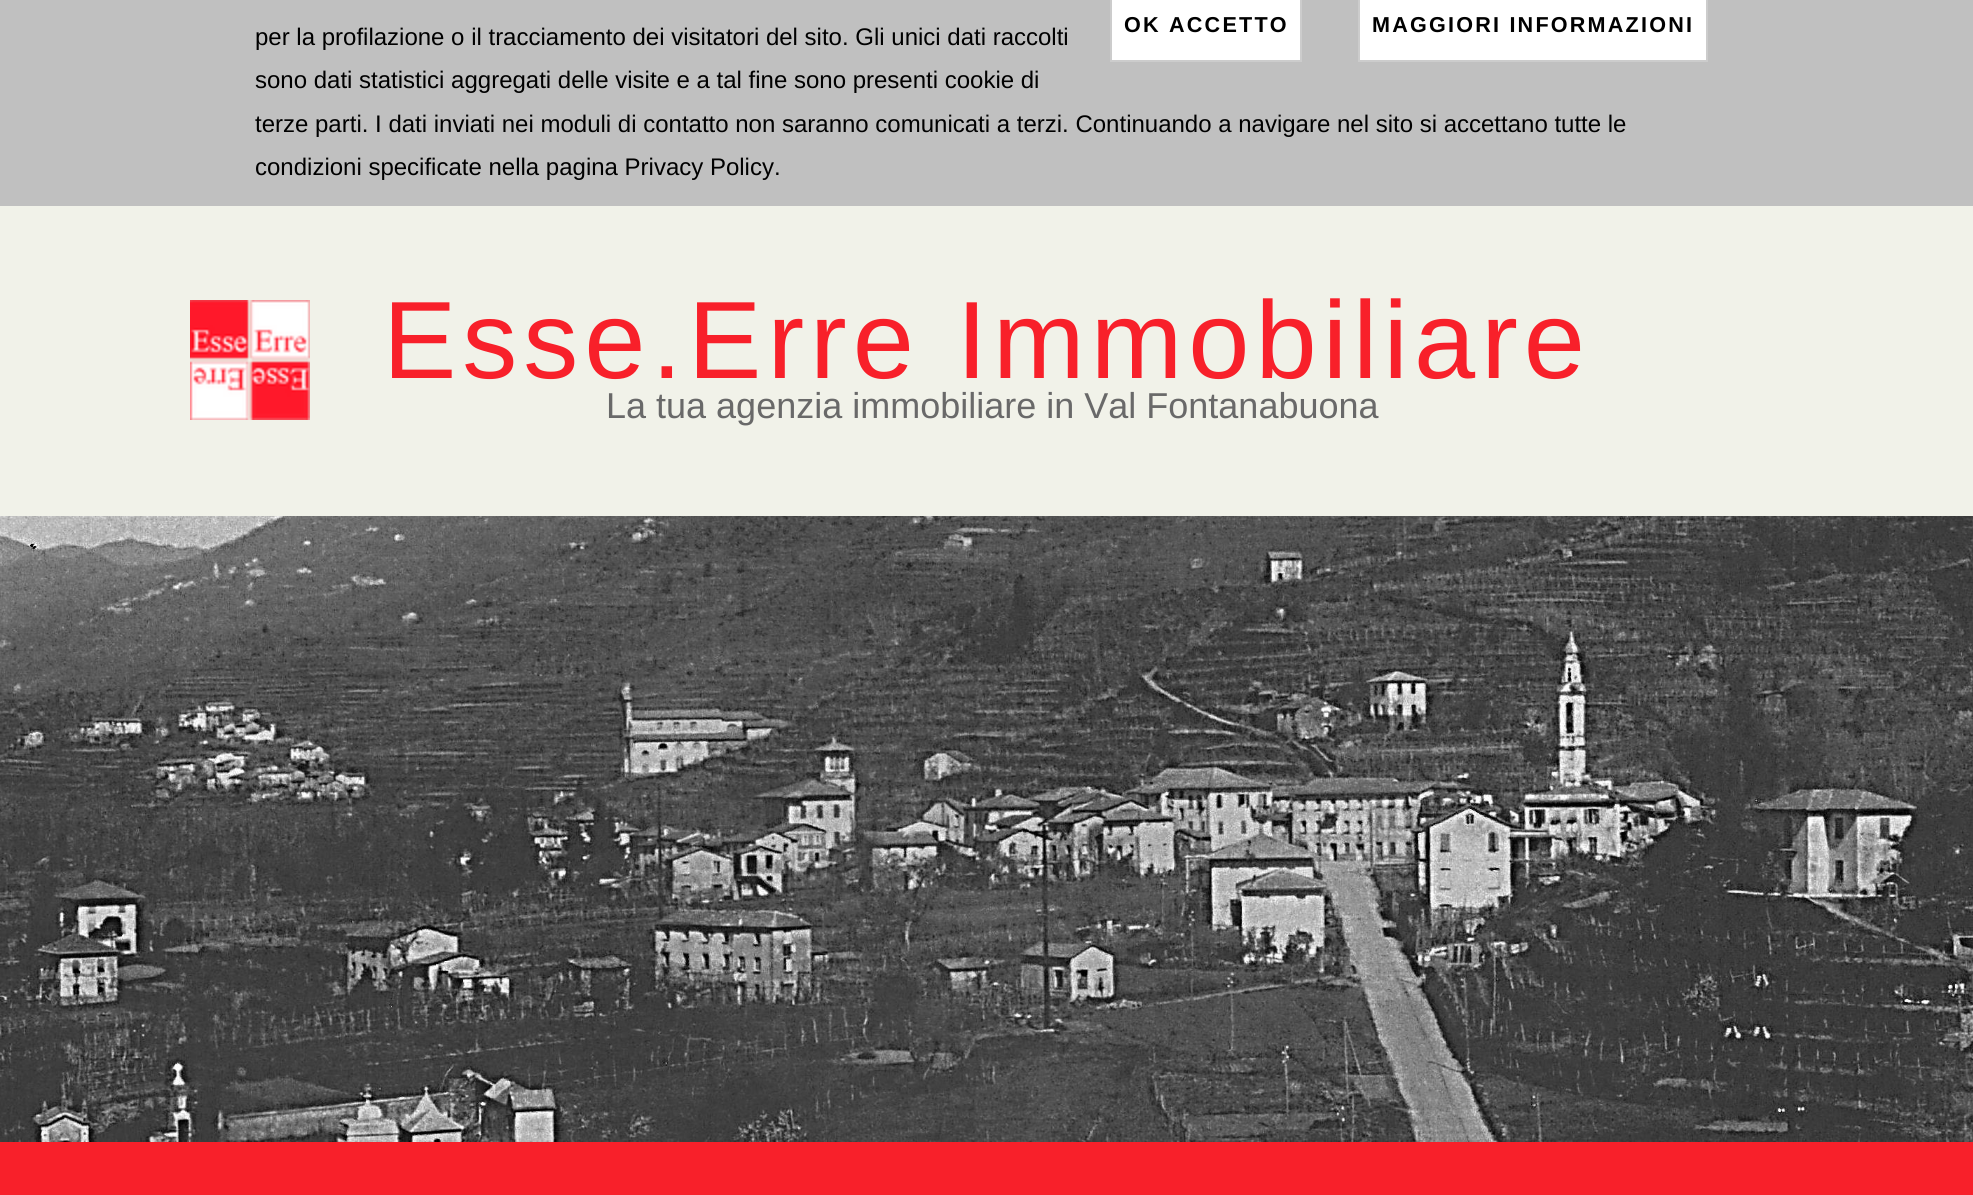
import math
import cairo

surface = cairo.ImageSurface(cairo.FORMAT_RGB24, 1973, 1195)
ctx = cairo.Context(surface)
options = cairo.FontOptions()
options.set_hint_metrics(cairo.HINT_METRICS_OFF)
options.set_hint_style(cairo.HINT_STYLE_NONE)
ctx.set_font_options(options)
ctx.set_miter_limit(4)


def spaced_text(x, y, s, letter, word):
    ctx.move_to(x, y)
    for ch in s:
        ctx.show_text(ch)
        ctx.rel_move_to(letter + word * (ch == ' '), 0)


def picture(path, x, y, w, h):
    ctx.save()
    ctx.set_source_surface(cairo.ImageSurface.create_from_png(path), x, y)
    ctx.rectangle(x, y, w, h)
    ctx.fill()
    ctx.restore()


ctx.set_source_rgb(0.753, 0.753, 0.753)
ctx.paint()
ctx.set_source_rgb(1, 1, 1)
ctx.rectangle(1111, -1, 190, 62)
ctx.fill_preserve()
ctx.set_source_rgb(0.8, 0.8, 0.8)
ctx.stroke()
ctx.select_font_face("Liberation Sans", cairo.FONT_SLANT_NORMAL, cairo.FONT_WEIGHT_BOLD)
ctx.set_font_size(21.6)
ctx.set_source_rgb(0, 0, 0)
spaced_text(1124, 32, "OK ACCETTO", 2.2, 0)
ctx.set_source_rgb(1, 1, 1)
ctx.rectangle(1359, -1, 348, 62)
ctx.fill_preserve()
ctx.set_source_rgb(0.8, 0.8, 0.8)
ctx.stroke()
ctx.set_source_rgb(0, 0, 0)
spaced_text(1372, 32, "MAGGIORI INFORMAZIONI", 2.2, 0)
ctx.select_font_face("Liberation Sans")
ctx.set_font_size(24)
ctx.move_to(255, 45)
ctx.show_text("per la profilazione o il tracciamento dei visitatori del sito. Gli unici dati raccolti")
ctx.move_to(255, 88)
ctx.show_text("sono dati statistici aggregati delle visite e a tal fine sono presenti cookie di")
ctx.move_to(255, 132)
ctx.show_text("terze parti. I dati inviati nei moduli di contatto non saranno comunicati a terzi. Continuando a navigare nel sito si accettano tutte le")
ctx.move_to(255, 175)
ctx.show_text("condizioni specificate nella pagina Privacy Policy.")
ctx.set_source_rgb(0.945, 0.949, 0.914)
ctx.rectangle(0, 206, 1973, 310)
ctx.fill()
picture("img1.png", 190, 300, 120, 120)
ctx.set_font_size(110)
ctx.set_source_rgb(0.969, 0.125, 0.165)
spaced_text(383, 378, "Esse.Erre Immobiliare", 6, 0)
ctx.set_font_size(36)
ctx.set_source_rgb(0.412, 0.412, 0.412)
ctx.move_to(606, 418)
ctx.show_text("La tua agenzia immobiliare in Val Fontanabuona")
picture("img2.png", 0, 516, 1973, 626)
ctx.set_source_rgb(0.969, 0.125, 0.165)
ctx.rectangle(0, 1142, 1973, 53)
ctx.fill()
surface.write_to_png("page.png")
